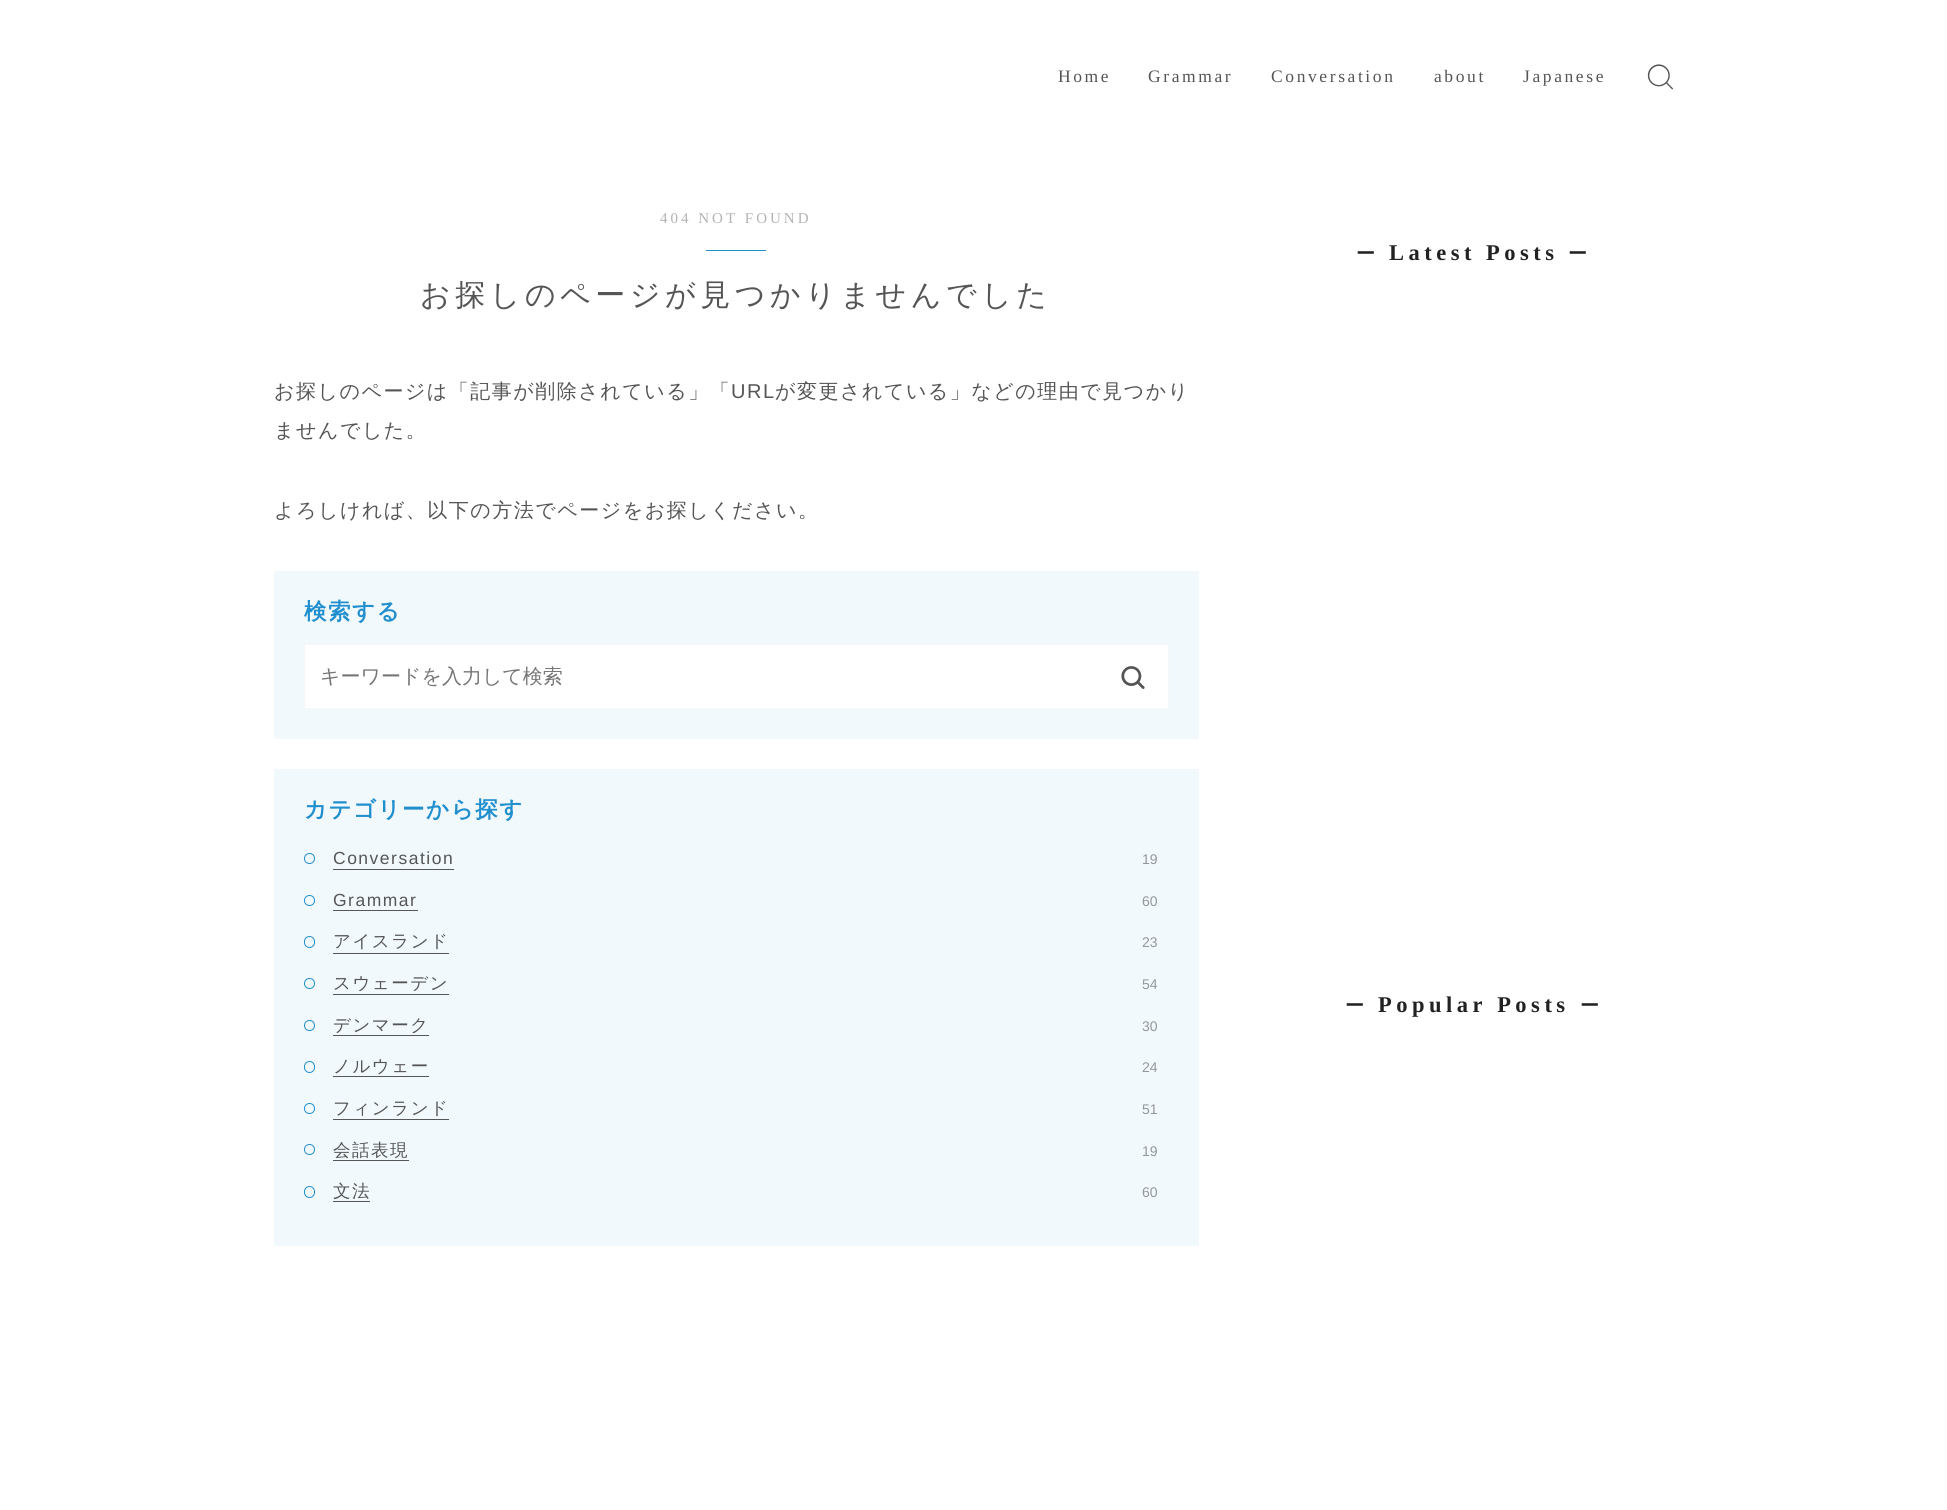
import math
import cairo

surface = cairo.ImageSurface(cairo.FORMAT_RGB24, 1947, 1510)
ctx = cairo.Context(surface)
options = cairo.FontOptions()
options.set_hint_metrics(cairo.HINT_METRICS_OFF)
options.set_hint_style(cairo.HINT_STYLE_NONE)
ctx.set_font_options(options)
ctx.set_miter_limit(4)


def spaced_text(x, y, s, letter, word):
    ctx.move_to(x, y)
    for ch in s:
        ctx.show_text(ch)
        ctx.rel_move_to(letter + word * (ch == ' '), 0)


def round_rect(x, y, w, h, r):
    ctx.new_sub_path()
    for i, (u, v) in enumerate([(x + w - r, y + h - r), (x + r, y + h - r), (x + r, y + r), (x + w - r, y + r)]):
        ctx.arc(u, v, r, i * math.pi / 2, (i + 1) * math.pi / 2)
    ctx.close_path()


def picture(path, x, y, w, h):
    ctx.save()
    ctx.set_source_surface(cairo.ImageSurface.create_from_png(path), x, y)
    ctx.rectangle(x, y, w, h)
    ctx.fill()
    ctx.restore()


ctx.set_source_rgb(1, 1, 1)
ctx.paint()
ctx.select_font_face("Liberation Serif")
ctx.set_font_size(17.5)
ctx.set_source_rgb(0.333, 0.333, 0.333)
spaced_text(1058, 82, "Home", 2.6, 0)
spaced_text(1148, 82, "Grammar", 2.6, 0)
spaced_text(1271, 82, "Conversation", 2.6, 0)
spaced_text(1434, 82, "about", 2.6, 0)
spaced_text(1523, 82, "Japanese", 2.6, 0)
picture("img1.png", 1647, 64, 26, 26)
ctx.set_font_size(15)
ctx.set_source_rgb(0.702, 0.702, 0.702)
spaced_text(660, 223, "404 NOT FOUND", 3, 0)
ctx.set_source_rgb(0.129, 0.557, 0.808)
ctx.rectangle(706, 250, 60, 1)
ctx.fill()
ctx.select_font_face("WenQuanYi Zen Hei Medium")
ctx.set_font_size(30)
ctx.set_source_rgb(0.333, 0.333, 0.333)
spaced_text(420, 305, "お探しのページが見つかりませんでした", 4.5, 0)
ctx.set_font_size(20)
spaced_text(274, 398, "お探しのページは「記事が削除されている」「", 1.5, 0)
ctx.select_font_face("Liberation Sans")
spaced_text(731, 398, "URL", 1.5, 0)
ctx.select_font_face("WenQuanYi Zen Hei Medium")
spaced_text(775, 398, "が変更されている」などの理由で見つかり", 1.5, 0)
spaced_text(274, 437, "ませんでした。", 1.5, 0)
spaced_text(274, 517, "よろしければ、以下の方法でページをお探しください。", 1.5, 0)
ctx.set_source_rgb(0.949, 0.976, 0.992)
ctx.rectangle(274, 571, 925, 168)
ctx.fill()
ctx.select_font_face("WenQuanYi Zen Hei", cairo.FONT_SLANT_NORMAL, cairo.FONT_WEIGHT_BOLD)
ctx.set_font_size(22.5)
ctx.set_source_rgb(0.129, 0.557, 0.808)
spaced_text(304, 619, "検索する", 1.5, 0)
ctx.set_source_rgb(1, 1, 1)
ctx.rectangle(304.5, 644.5, 864, 64)
ctx.fill_preserve()
ctx.set_source_rgb(0.965, 0.965, 0.965)
ctx.set_line_width(1)
ctx.stroke()
ctx.select_font_face("WenQuanYi Zen Hei Medium")
ctx.set_font_size(20)
ctx.set_source_rgb(0.459, 0.459, 0.459)
ctx.move_to(320, 683)
ctx.show_text("キーワードを入力して検索")
picture("img2.png", 1121, 666, 24, 23)
ctx.set_source_rgb(0.949, 0.976, 0.992)
ctx.rectangle(274, 769, 925, 477)
ctx.fill()
ctx.select_font_face("WenQuanYi Zen Hei", cairo.FONT_SLANT_NORMAL, cairo.FONT_WEIGHT_BOLD)
ctx.set_font_size(22.5)
ctx.set_source_rgb(0.129, 0.557, 0.808)
spaced_text(304, 817, "カテゴリーから探す", 1.5, 0)
ctx.new_path()
ctx.arc(309.5, 858.5, 5, 0, 2 * math.pi)
ctx.stroke()
ctx.select_font_face("Liberation Sans")
ctx.set_font_size(17.5)
ctx.set_source_rgb(0.333, 0.333, 0.333)
spaced_text(333, 864, "Conversation", 1.5, 0)
ctx.set_source_rgb(0.337, 0.337, 0.337)
ctx.rectangle(333, 869, 121, 1)
ctx.fill()
ctx.set_font_size(14)
ctx.set_source_rgb(0.58, 0.592, 0.6)
ctx.move_to(1142, 864)
ctx.show_text("19")
ctx.new_path()
ctx.arc(309.5, 900.5, 5, 0, 2 * math.pi)
ctx.set_source_rgb(0.129, 0.557, 0.808)
ctx.stroke()
ctx.set_font_size(17.5)
ctx.set_source_rgb(0.333, 0.333, 0.333)
spaced_text(333, 906, "Grammar", 1.5, 0)
ctx.set_source_rgb(0.337, 0.337, 0.337)
ctx.rectangle(333, 910, 85, 1)
ctx.fill()
ctx.set_font_size(14)
ctx.set_source_rgb(0.58, 0.592, 0.6)
ctx.move_to(1142, 906)
ctx.show_text("60")
round_rect(304.5, 936.5, 10, 11, 5)
ctx.set_source_rgb(0.129, 0.557, 0.808)
ctx.stroke()
ctx.select_font_face("WenQuanYi Zen Hei Medium")
ctx.set_font_size(17.5)
ctx.set_source_rgb(0.333, 0.333, 0.333)
spaced_text(333, 947, "アイスランド", 1.5, 0)
ctx.set_source_rgb(0.337, 0.337, 0.337)
ctx.rectangle(333, 953, 116, 1)
ctx.fill()
ctx.select_font_face("Liberation Sans")
ctx.set_font_size(14)
ctx.set_source_rgb(0.58, 0.592, 0.6)
ctx.move_to(1142, 947)
ctx.show_text("23")
ctx.new_path()
ctx.arc(309.5, 983.5, 5, 0, 2 * math.pi)
ctx.set_source_rgb(0.129, 0.557, 0.808)
ctx.stroke()
ctx.select_font_face("WenQuanYi Zen Hei Medium")
ctx.set_font_size(17.5)
ctx.set_source_rgb(0.333, 0.333, 0.333)
spaced_text(333, 989, "スウェーデン", 1.5, 0)
ctx.set_source_rgb(0.337, 0.337, 0.337)
ctx.rectangle(333, 994, 116, 1)
ctx.fill()
ctx.select_font_face("Liberation Sans")
ctx.set_font_size(14)
ctx.set_source_rgb(0.58, 0.592, 0.6)
ctx.move_to(1142, 989)
ctx.show_text("54")
ctx.new_path()
ctx.arc(309.5, 1025.5, 5, 0, 2 * math.pi)
ctx.set_source_rgb(0.129, 0.557, 0.808)
ctx.stroke()
ctx.select_font_face("WenQuanYi Zen Hei Medium")
ctx.set_font_size(17.5)
ctx.set_source_rgb(0.333, 0.333, 0.333)
spaced_text(333, 1031, "デンマーク", 1.5, 0)
ctx.set_source_rgb(0.337, 0.337, 0.337)
ctx.rectangle(333, 1035, 96, 1)
ctx.fill()
ctx.select_font_face("Liberation Sans")
ctx.set_font_size(14)
ctx.set_source_rgb(0.58, 0.592, 0.6)
ctx.move_to(1142, 1031)
ctx.show_text("30")
round_rect(304.5, 1061.5, 10, 11, 5)
ctx.set_source_rgb(0.129, 0.557, 0.808)
ctx.stroke()
ctx.select_font_face("WenQuanYi Zen Hei Medium")
ctx.set_font_size(17.5)
ctx.set_source_rgb(0.333, 0.333, 0.333)
spaced_text(333, 1072, "ノルウェー", 1.5, 0)
ctx.set_source_rgb(0.337, 0.337, 0.337)
ctx.rectangle(333, 1076, 96, 1)
ctx.fill()
ctx.select_font_face("Liberation Sans")
ctx.set_font_size(14)
ctx.set_source_rgb(0.58, 0.592, 0.6)
ctx.move_to(1142, 1072)
ctx.show_text("24")
ctx.new_path()
ctx.arc(309.5, 1108.5, 5, 0, 2 * math.pi)
ctx.set_source_rgb(0.129, 0.557, 0.808)
ctx.stroke()
ctx.select_font_face("WenQuanYi Zen Hei Medium")
ctx.set_font_size(17.5)
ctx.set_source_rgb(0.333, 0.333, 0.333)
spaced_text(333, 1114, "フィンランド", 1.5, 0)
ctx.set_source_rgb(0.337, 0.337, 0.337)
ctx.rectangle(333, 1119, 116, 1)
ctx.fill()
ctx.select_font_face("Liberation Sans")
ctx.set_font_size(14)
ctx.set_source_rgb(0.58, 0.592, 0.6)
ctx.move_to(1142, 1114)
ctx.show_text("51")
ctx.new_path()
ctx.arc(309.5, 1149.5, 5, 0, 2 * math.pi)
ctx.set_source_rgb(0.129, 0.557, 0.808)
ctx.stroke()
ctx.select_font_face("WenQuanYi Zen Hei Medium")
ctx.set_font_size(17.5)
ctx.set_source_rgb(0.333, 0.333, 0.333)
spaced_text(333, 1156, "会話表現", 1.5, 0)
ctx.set_source_rgb(0.337, 0.337, 0.337)
ctx.rectangle(333, 1160, 76, 1)
ctx.fill()
ctx.select_font_face("Liberation Sans")
ctx.set_font_size(14)
ctx.set_source_rgb(0.58, 0.592, 0.6)
ctx.move_to(1142, 1156)
ctx.show_text("19")
round_rect(304.5, 1186.5, 10, 11, 5)
ctx.set_source_rgb(0.129, 0.557, 0.808)
ctx.stroke()
ctx.select_font_face("WenQuanYi Zen Hei Medium")
ctx.set_font_size(17.5)
ctx.set_source_rgb(0.333, 0.333, 0.333)
spaced_text(333, 1197, "文法", 1.5, 0)
ctx.set_source_rgb(0.337, 0.337, 0.337)
ctx.rectangle(333, 1201, 37, 1)
ctx.fill()
ctx.select_font_face("Liberation Sans")
ctx.set_font_size(14)
ctx.set_source_rgb(0.58, 0.592, 0.6)
ctx.move_to(1142, 1197)
ctx.show_text("60")
ctx.select_font_face("WenQuanYi Zen Hei", cairo.FONT_SLANT_NORMAL, cairo.FONT_WEIGHT_BOLD)
ctx.set_font_size(19)
ctx.set_source_rgb(0.133, 0.133, 0.133)
spaced_text(1356, 260, "ー", 4.5, 0)
ctx.select_font_face("Liberation Serif", cairo.FONT_SLANT_NORMAL, cairo.FONT_WEIGHT_BOLD)
ctx.set_font_size(22.5)
spaced_text(1389, 260, "Latest Posts", 4.5, 0)
ctx.select_font_face("WenQuanYi Zen Hei", cairo.FONT_SLANT_NORMAL, cairo.FONT_WEIGHT_BOLD)
ctx.set_font_size(19)
spaced_text(1568, 260, "ー", 4.5, 0)
spaced_text(1345, 1012, "ー", 4.5, 0)
ctx.select_font_face("Liberation Serif", cairo.FONT_SLANT_NORMAL, cairo.FONT_WEIGHT_BOLD)
ctx.set_font_size(22.5)
spaced_text(1378, 1012, "Popular Posts", 4.5, 0)
ctx.select_font_face("WenQuanYi Zen Hei", cairo.FONT_SLANT_NORMAL, cairo.FONT_WEIGHT_BOLD)
ctx.set_font_size(19)
spaced_text(1580, 1012, "ー", 4.5, 0)
surface.write_to_png("page.png")
